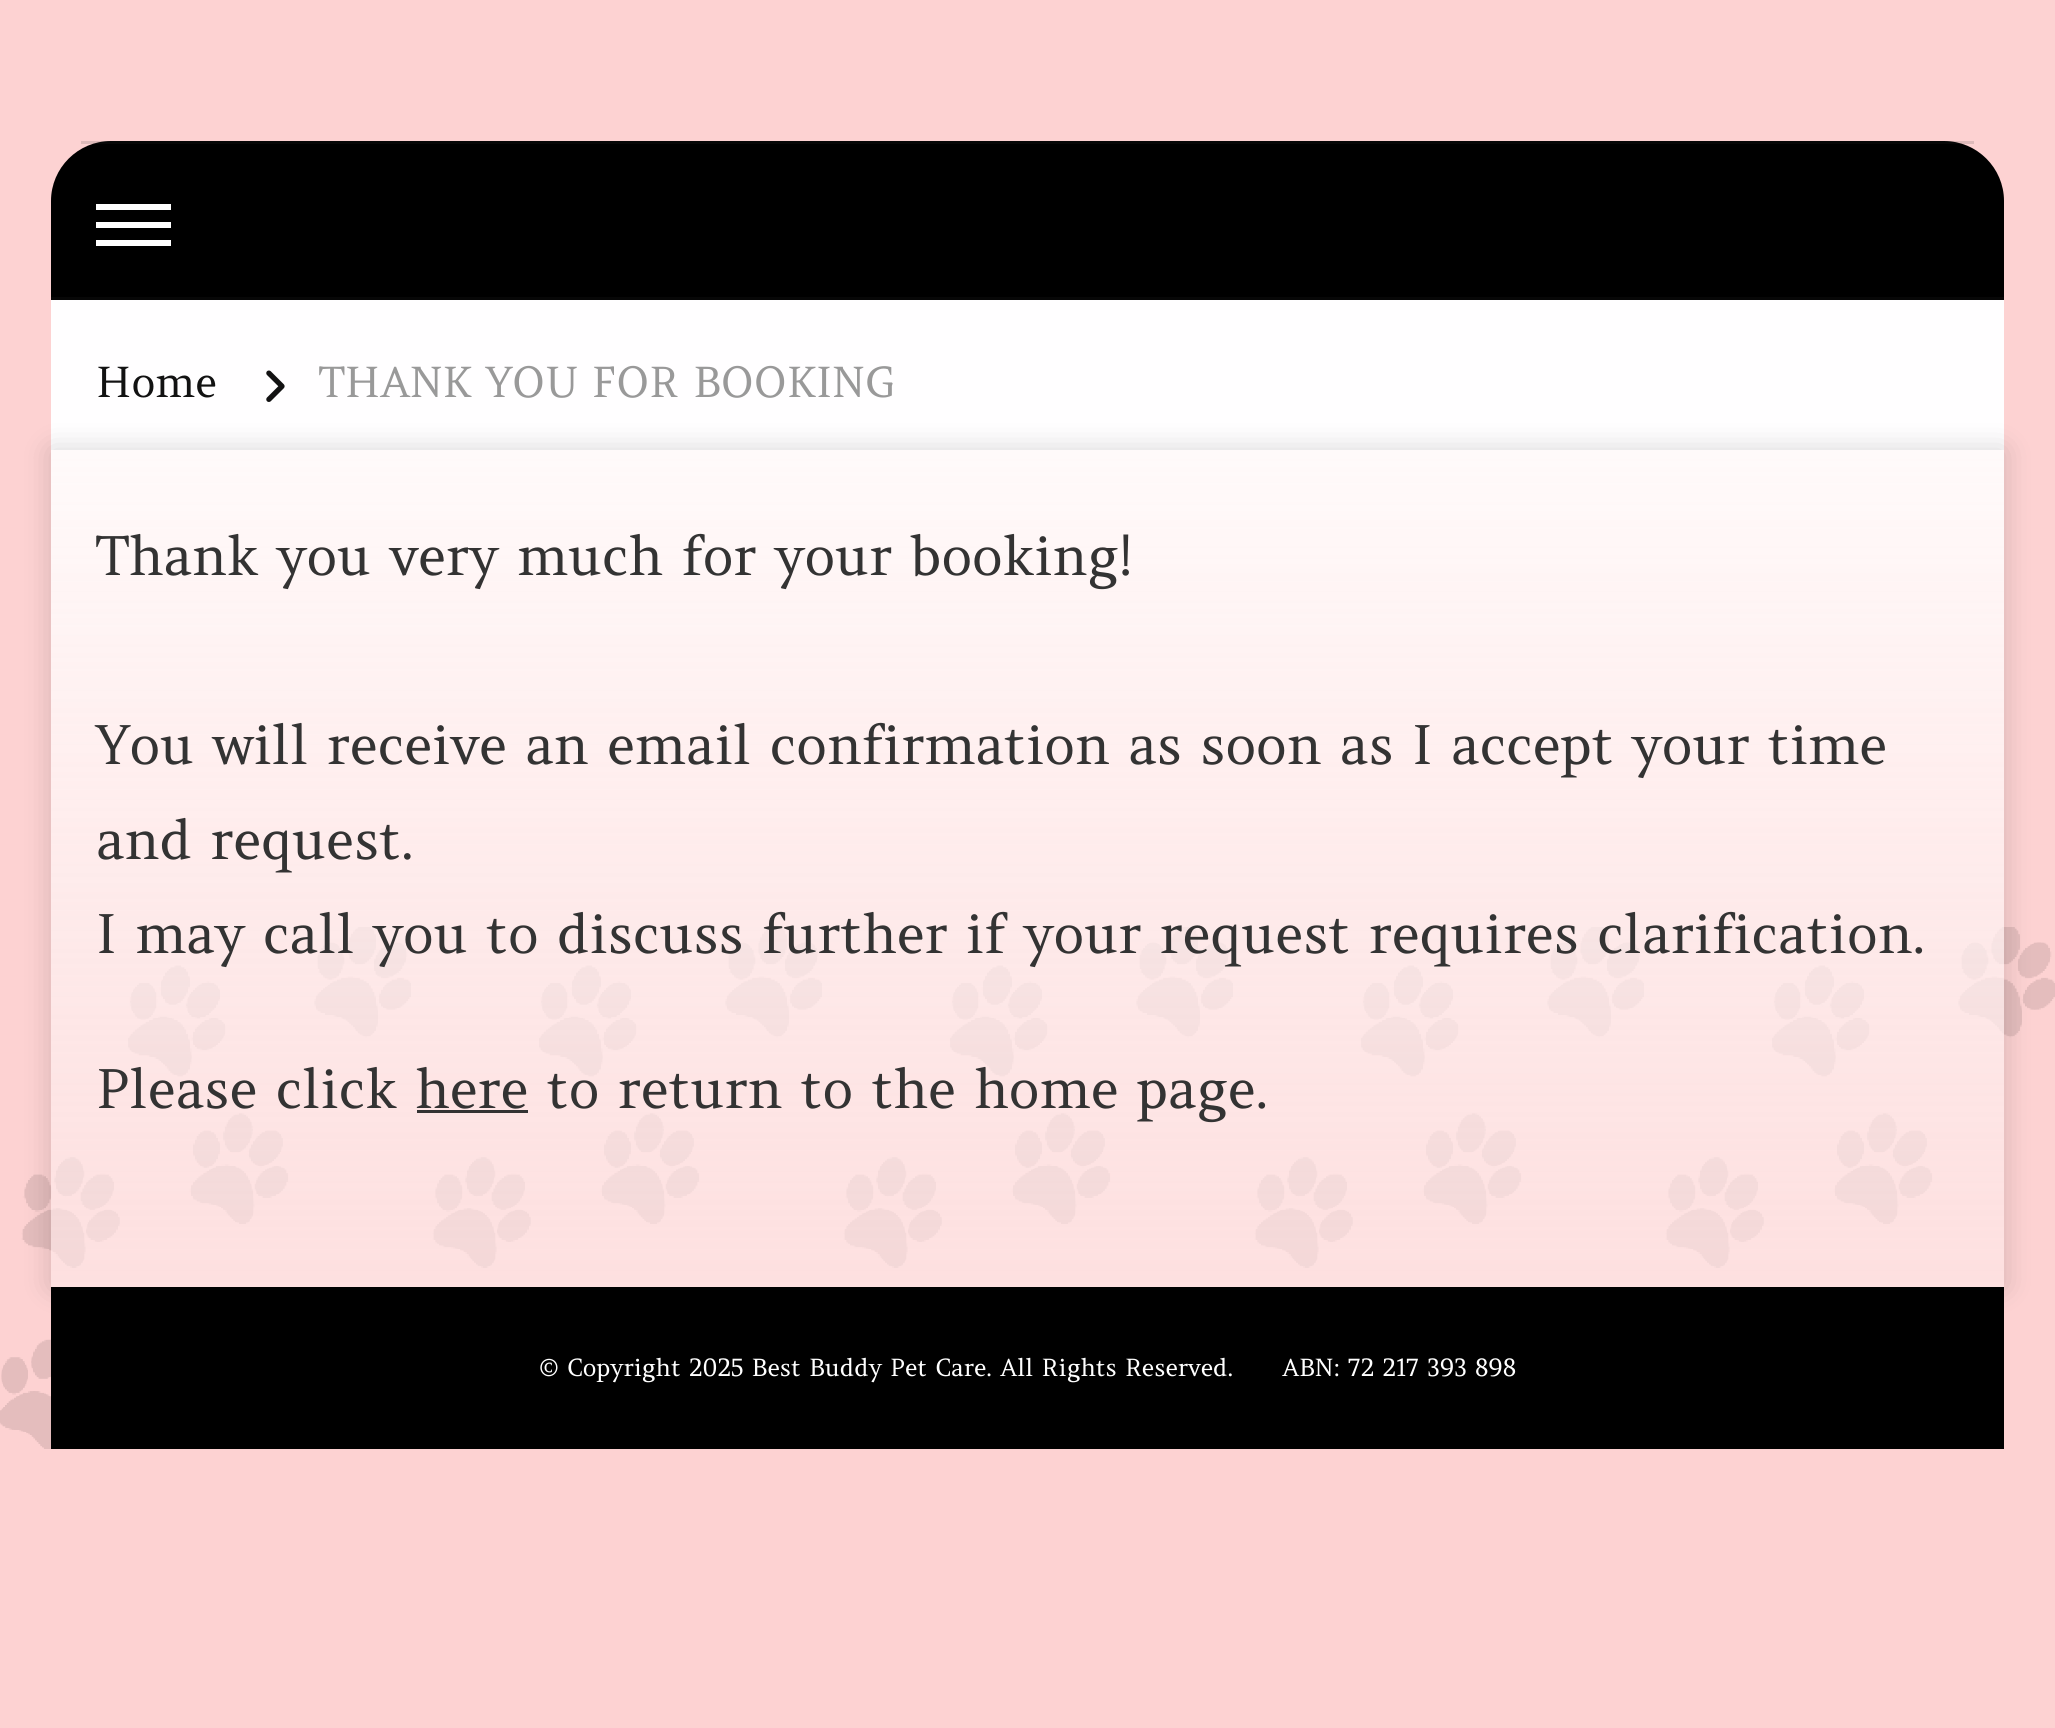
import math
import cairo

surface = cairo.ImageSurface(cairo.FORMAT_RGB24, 2055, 1728)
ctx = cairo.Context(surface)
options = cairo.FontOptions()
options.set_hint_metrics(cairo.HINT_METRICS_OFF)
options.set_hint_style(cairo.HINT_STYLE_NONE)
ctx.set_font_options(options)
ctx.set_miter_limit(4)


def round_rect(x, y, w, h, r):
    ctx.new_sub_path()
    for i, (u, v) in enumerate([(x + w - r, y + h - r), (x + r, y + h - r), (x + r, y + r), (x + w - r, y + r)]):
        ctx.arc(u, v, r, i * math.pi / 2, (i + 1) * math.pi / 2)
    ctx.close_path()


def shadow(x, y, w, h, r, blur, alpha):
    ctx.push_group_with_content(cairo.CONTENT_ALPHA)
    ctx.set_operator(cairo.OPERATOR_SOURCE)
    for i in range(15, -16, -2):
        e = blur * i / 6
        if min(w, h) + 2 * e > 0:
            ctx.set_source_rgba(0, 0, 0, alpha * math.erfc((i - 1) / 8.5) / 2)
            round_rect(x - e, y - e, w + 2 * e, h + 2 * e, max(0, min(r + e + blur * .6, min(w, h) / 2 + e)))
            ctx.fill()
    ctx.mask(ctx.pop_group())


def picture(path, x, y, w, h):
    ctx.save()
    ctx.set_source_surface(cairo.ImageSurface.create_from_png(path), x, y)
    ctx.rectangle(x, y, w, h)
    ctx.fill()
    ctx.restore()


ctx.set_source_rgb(0.992, 0.824, 0.824)
ctx.paint()
picture("img1.png", 0, 927, 2055, 522)
ctx.set_source_rgb(0, 0, 0)
ctx.new_path()
ctx.move_to(111, 141)
ctx.line_to(1944, 141)
ctx.curve_to(1977, 141, 2004, 168, 2004, 201)
ctx.line_to(2004, 300)
ctx.line_to(51, 300)
ctx.line_to(51, 201)
ctx.curve_to(51, 168, 78, 141, 111, 141)
ctx.close_path()
ctx.fill()
ctx.set_source_rgba(0.2, 0.2, 0.2, 0.15)
ctx.rectangle(81, 141, 1893, 3)
ctx.fill()
ctx.set_source_rgb(0.031, 0.031, 0.031)
ctx.rectangle(51, 297, 1953, 3)
ctx.fill()
ctx.set_source_rgb(1, 1, 1)
ctx.rectangle(96, 204, 75, 6)
ctx.fill()
ctx.rectangle(96, 222, 75, 6)
ctx.fill()
ctx.rectangle(96, 240, 75, 6)
ctx.fill()
ctx.set_source_rgb(1, 0.996, 1)
ctx.rectangle(51, 300, 1953, 150)
ctx.fill()
ctx.select_font_face("Amethysta")
ctx.set_font_size(42)
ctx.set_source_rgb(0.071, 0.071, 0.071)
ctx.move_to(96, 397)
ctx.show_text("Home")
picture("img2.png", 266, 370, 19, 32)
ctx.set_source_rgb(0.6, 0.6, 0.6)
ctx.move_to(319, 397)
ctx.show_text("THANK YOU FOR BOOKING")
ctx.save()
ctx.set_fill_rule(cairo.FILL_RULE_EVEN_ODD)
ctx.new_path()
ctx.move_to(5, 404)
ctx.line_to(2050, 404)
ctx.line_to(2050, 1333)
ctx.line_to(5, 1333)
ctx.close_path()
ctx.move_to(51, 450)
ctx.line_to(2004, 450)
ctx.line_to(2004, 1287)
ctx.line_to(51, 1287)
ctx.close_path()
ctx.clip()
ctx.set_source_rgb(0, 0, 0)
shadow(51, 450, 1953, 837, 0, 15, 0.16)
ctx.restore()
gradient = cairo.LinearGradient(1028, 450, 1028, 1287)
gradient.add_color_stop_rgba(0, 1, 1, 1, 0.9)
gradient.add_color_stop_rgba(1, 0.996, 0.914, 0.914, 0.6)
ctx.set_source(gradient)
ctx.rectangle(51, 450, 1953, 837)
ctx.fill()
ctx.set_font_size(54)
ctx.set_source_rgb(0.2, 0.2, 0.2)
ctx.move_to(96, 575)
ctx.show_text("Thank you very much for your booking!")
ctx.move_to(96, 764)
ctx.show_text("You will receive an email confirmation as soon as I accept your time")
ctx.move_to(96, 859)
ctx.show_text("and request.")
ctx.move_to(96, 953)
ctx.show_text("I may call you to discuss further if your request requires clarification.")
ctx.move_to(96, 1108)
ctx.show_text("Please click here to return to the home page.")
ctx.rectangle(417, 1110, 111, 3)
ctx.fill()
ctx.set_source_rgb(0, 0, 0)
ctx.rectangle(51, 1287, 1953, 162)
ctx.fill()
ctx.set_font_size(24)
ctx.set_source_rgb(1, 1, 1)
ctx.move_to(539, 1376)
ctx.show_text("© Copyright 2025 Best Buddy Pet Care. All Rights Reserved.")
ctx.move_to(1282, 1376)
ctx.show_text("ABN: 72 217 393 898")
surface.write_to_png("page.png")
